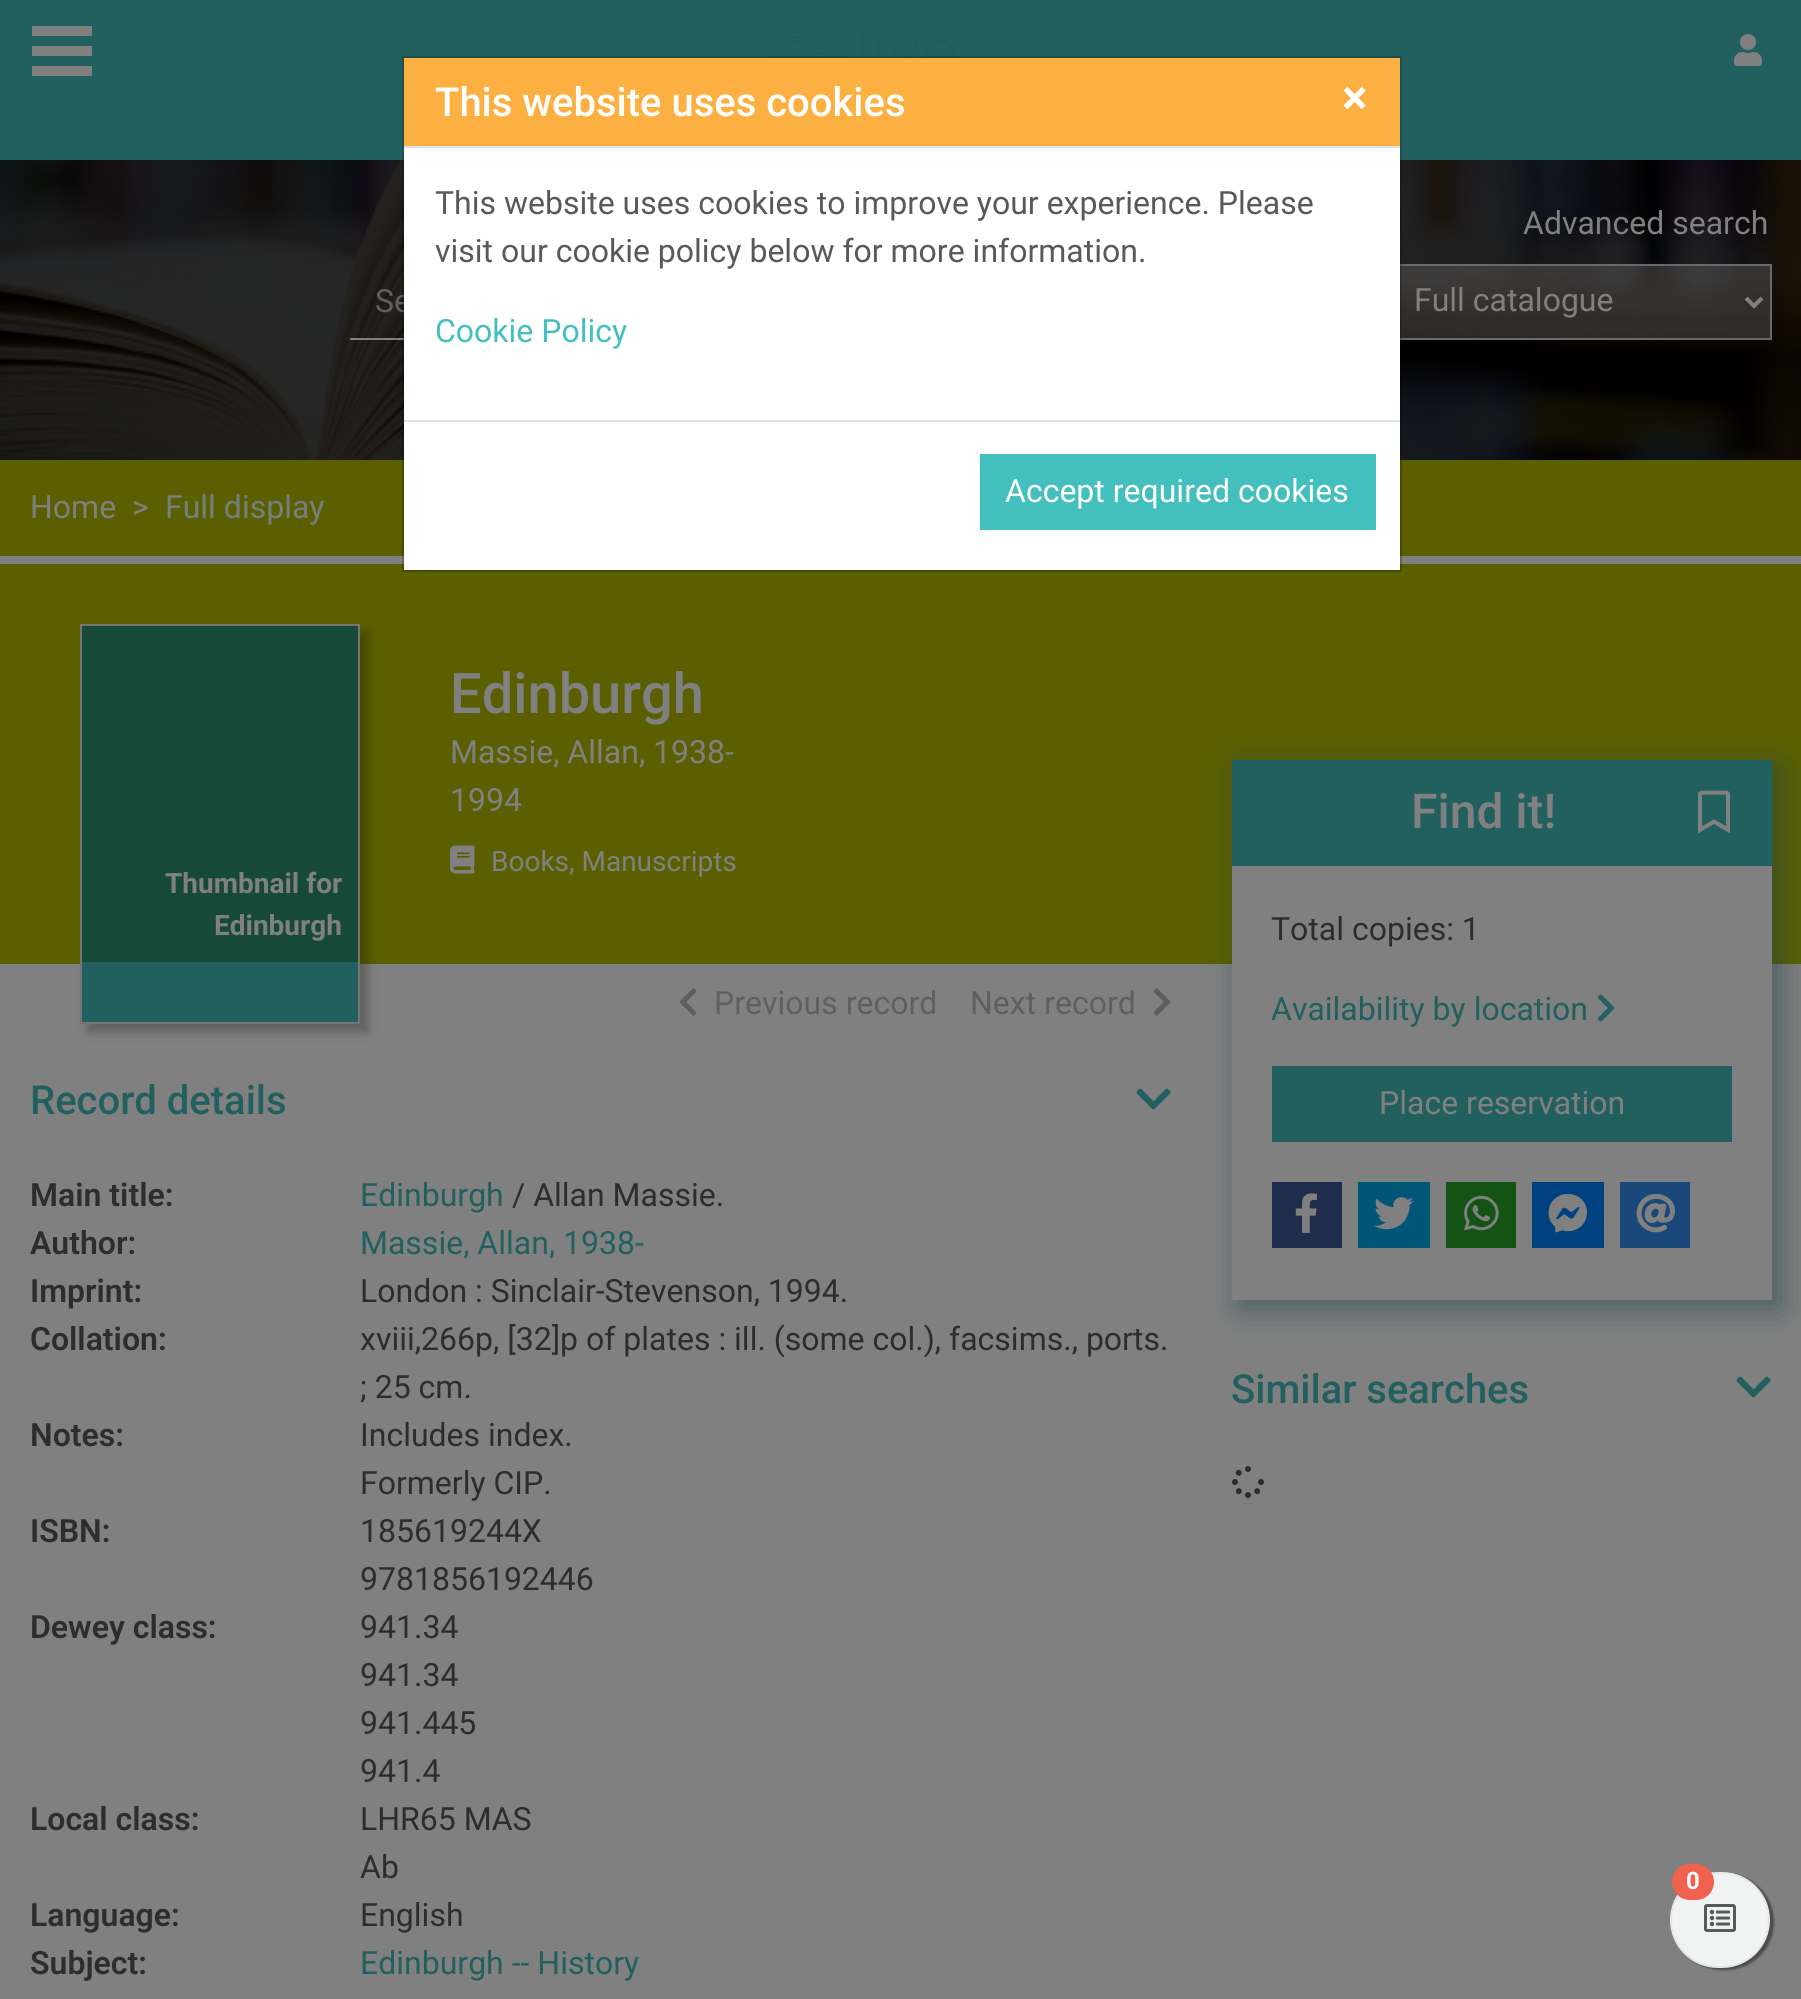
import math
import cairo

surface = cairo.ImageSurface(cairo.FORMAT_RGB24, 1801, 1999)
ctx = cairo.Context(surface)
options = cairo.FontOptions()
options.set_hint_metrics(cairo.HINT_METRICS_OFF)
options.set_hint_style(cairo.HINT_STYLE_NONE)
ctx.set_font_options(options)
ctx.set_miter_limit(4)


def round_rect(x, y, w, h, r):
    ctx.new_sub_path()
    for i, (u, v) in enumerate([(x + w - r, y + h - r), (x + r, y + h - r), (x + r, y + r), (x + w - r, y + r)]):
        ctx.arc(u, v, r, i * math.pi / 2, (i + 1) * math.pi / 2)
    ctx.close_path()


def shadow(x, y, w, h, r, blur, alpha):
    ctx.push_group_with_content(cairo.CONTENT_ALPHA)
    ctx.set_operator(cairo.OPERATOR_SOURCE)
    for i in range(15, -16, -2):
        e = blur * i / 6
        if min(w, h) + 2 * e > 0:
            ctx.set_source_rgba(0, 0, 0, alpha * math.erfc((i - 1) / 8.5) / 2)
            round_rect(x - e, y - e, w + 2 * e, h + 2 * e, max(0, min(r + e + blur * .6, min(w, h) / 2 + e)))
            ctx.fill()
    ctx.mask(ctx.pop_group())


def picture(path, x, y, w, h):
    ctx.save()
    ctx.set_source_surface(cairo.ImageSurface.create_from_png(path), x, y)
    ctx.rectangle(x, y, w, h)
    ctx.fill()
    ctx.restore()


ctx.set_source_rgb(0.502, 0.502, 0.502)
ctx.paint()
picture("img1.png", 0, 160, 1801, 300)
ctx.set_source_rgb(0.133, 0.376, 0.373)
ctx.rectangle(0, 0, 1801, 160)
ctx.fill()
ctx.select_font_face("Roboto")
ctx.set_font_size(32)
ctx.set_source_rgb(0.373, 0.373, 0.369)
ctx.move_to(375, 312)
ctx.show_text("Se")
ctx.set_source_rgba(0.502, 0.502, 0.502, 0.3)
ctx.rectangle(1400, 266, 370, 72)
ctx.fill()
ctx.rectangle(1381, 265, 390, 74)
ctx.set_source_rgb(0.404, 0.416, 0.427)
ctx.stroke()
ctx.set_source_rgb(0.357, 0.373, 0)
ctx.rectangle(0, 460, 1801, 96)
ctx.fill()
ctx.rectangle(0, 564, 1801, 400)
ctx.fill()
ctx.set_source_rgb(1, 1, 1)
ctx.rectangle(404, 148, 996, 422)
ctx.fill()
picture("img2.png", 768, 27, 189, 31)
ctx.set_source_rgb(0.502, 0.502, 0.502)
ctx.rectangle(350, 338, 54, 2)
ctx.fill()
ctx.rectangle(403, 57, 998, 514)
ctx.set_source_rgba(0, 0, 0, 0.2)
ctx.stroke()
ctx.set_source_rgb(0.984, 0.69, 0.255)
ctx.rectangle(404, 58, 996, 88)
ctx.fill()
ctx.set_source_rgb(0.871, 0.886, 0.902)
ctx.rectangle(404, 146, 996, 2)
ctx.fill()
ctx.select_font_face("Roboto Medium")
ctx.set_font_size(40)
ctx.set_source_rgb(1, 1, 1)
ctx.move_to(435, 116)
ctx.show_text("This website uses cookies")
ctx.select_font_face("Roboto", cairo.FONT_SLANT_NORMAL, cairo.FONT_WEIGHT_BOLD)
ctx.set_font_size(48)
ctx.move_to(1342, 114)
ctx.show_text("×")
ctx.select_font_face("Roboto")
ctx.set_font_size(32)
ctx.set_source_rgb(0.345, 0.349, 0.357)
ctx.move_to(435, 214)
ctx.show_text("This website uses cookies to improve your experience. Please")
ctx.move_to(435, 262)
ctx.show_text("visit our cookie policy below for more information.")
ctx.set_source_rgb(0.263, 0.753, 0.745)
ctx.move_to(435, 342)
ctx.show_text("Cookie Policy")
ctx.set_source_rgb(0.871, 0.886, 0.902)
ctx.rectangle(404, 420, 996, 2)
ctx.fill()
ctx.set_source_rgb(0.263, 0.753, 0.745)
ctx.rectangle(980, 454, 396, 76)
ctx.fill()
ctx.set_source_rgb(1, 1, 1)
ctx.move_to(1005, 502)
ctx.show_text("Accept required cookies")
ctx.set_source_rgb(0.502, 0.502, 0.502)
ctx.rectangle(32, 46, 60, 10)
ctx.fill()
ctx.rectangle(32, 26, 60, 10)
ctx.fill()
ctx.rectangle(32, 66, 60, 10)
ctx.fill()
picture("img3.png", 1734, 34, 28, 32)
ctx.move_to(1523, 234)
ctx.show_text("Advanced search")
ctx.new_path()
ctx.move_to(1746, 298)
ctx.line_to(1754, 306)
ctx.line_to(1762, 298)
ctx.set_line_width(4)
ctx.stroke()
ctx.move_to(1414, 311)
ctx.show_text("Full catalogue")
ctx.move_to(30, 518)
ctx.show_text("Home")
ctx.move_to(132, 518)
ctx.show_text(">")
ctx.set_source_rgb(0.455, 0.502, 0.502)
ctx.move_to(165, 518)
ctx.show_text("Full display")
ctx.select_font_face("Roboto Medium")
ctx.set_font_size(56)
ctx.set_source_rgb(0.502, 0.502, 0.502)
ctx.move_to(450, 713)
ctx.show_text("Edinburgh")
ctx.select_font_face("Roboto")
ctx.set_font_size(32)
ctx.move_to(450, 763)
ctx.show_text("Massie, Allan, 1938-")
ctx.move_to(450, 811)
ctx.show_text("1994")
picture("img4.png", 450, 845, 25, 29)
ctx.set_font_size(28)
ctx.move_to(491, 871)
ctx.show_text("Books, Manuscripts")
ctx.set_source_rgb(0, 0, 0)
shadow(88, 632, 280, 400, 0, 5, 0.25)
ctx.set_source_rgb(0.133, 0.376, 0.373)
ctx.rectangle(82, 962, 276, 60)
ctx.fill()
ctx.rectangle(81, 625, 278, 398)
ctx.set_source_rgb(0.451, 0.455, 0.455)
ctx.set_line_width(2)
ctx.stroke()
ctx.set_source_rgb(0.086, 0.286, 0.216)
ctx.rectangle(82, 626, 276, 336)
ctx.fill()
ctx.select_font_face("Roboto", cairo.FONT_SLANT_NORMAL, cairo.FONT_WEIGHT_BOLD)
ctx.set_source_rgb(0.502, 0.502, 0.502)
ctx.move_to(165, 893)
ctx.show_text("Thumbnail for")
ctx.move_to(214, 935)
ctx.show_text("Edinburgh")
ctx.select_font_face("Roboto Medium")
ctx.set_font_size(40)
ctx.set_source_rgb(0.133, 0.376, 0.373)
ctx.move_to(30, 1114)
ctx.show_text("Record details")
picture("img5.png", 1136, 1088, 35, 22)
ctx.select_font_face("Roboto SemiBold")
ctx.set_font_size(32)
ctx.set_source_rgb(0.173, 0.176, 0.18)
ctx.move_to(30, 1206)
ctx.show_text("Main title:")
ctx.select_font_face("Roboto")
ctx.set_source_rgb(0.133, 0.376, 0.373)
ctx.move_to(360, 1206)
ctx.show_text("Edinburgh")
ctx.set_source_rgb(0.173, 0.176, 0.18)
ctx.move_to(512, 1206)
ctx.show_text("/ Allan Massie.")
ctx.select_font_face("Roboto SemiBold")
ctx.move_to(30, 1254)
ctx.show_text("Author:")
ctx.select_font_face("Roboto")
ctx.set_source_rgb(0.133, 0.376, 0.373)
ctx.move_to(360, 1254)
ctx.show_text("Massie, Allan, 1938-")
ctx.select_font_face("Roboto SemiBold")
ctx.set_source_rgb(0.173, 0.176, 0.18)
ctx.move_to(30, 1302)
ctx.show_text("Imprint:")
ctx.select_font_face("Roboto")
ctx.move_to(360, 1302)
ctx.show_text("London : Sinclair-Stevenson, 1994.")
ctx.select_font_face("Roboto SemiBold")
ctx.move_to(30, 1350)
ctx.show_text("Collation:")
ctx.select_font_face("Roboto")
ctx.move_to(360, 1350)
ctx.show_text("xviii,266p, [32]p of plates : ill. (some col.), facsims., ports.")
ctx.move_to(360, 1398)
ctx.show_text("; 25 cm.")
ctx.select_font_face("Roboto SemiBold")
ctx.move_to(30, 1446)
ctx.show_text("Notes:")
ctx.select_font_face("Roboto")
ctx.move_to(360, 1446)
ctx.show_text("Includes index.")
ctx.move_to(360, 1494)
ctx.show_text("Formerly CIP.")
ctx.select_font_face("Roboto SemiBold")
ctx.move_to(30, 1542)
ctx.show_text("ISBN:")
ctx.select_font_face("Roboto")
ctx.move_to(360, 1542)
ctx.show_text("185619244X")
ctx.move_to(360, 1590)
ctx.show_text("9781856192446")
ctx.select_font_face("Roboto SemiBold")
ctx.move_to(30, 1638)
ctx.show_text("Dewey class:")
ctx.select_font_face("Roboto")
ctx.move_to(360, 1638)
ctx.show_text("941.34")
ctx.move_to(360, 1686)
ctx.show_text("941.34")
ctx.move_to(360, 1734)
ctx.show_text("941.445")
ctx.move_to(360, 1782)
ctx.show_text("941.4")
ctx.select_font_face("Roboto SemiBold")
ctx.move_to(30, 1830)
ctx.show_text("Local class:")
ctx.select_font_face("Roboto")
ctx.move_to(360, 1830)
ctx.show_text("LHR65 MAS")
ctx.move_to(360, 1878)
ctx.show_text("Ab")
ctx.select_font_face("Roboto SemiBold")
ctx.move_to(30, 1926)
ctx.show_text("Language:")
ctx.select_font_face("Roboto")
ctx.move_to(360, 1926)
ctx.show_text("English")
ctx.select_font_face("Roboto SemiBold")
ctx.move_to(30, 1974)
ctx.show_text("Subject:")
ctx.select_font_face("Roboto")
ctx.set_source_rgb(0.133, 0.376, 0.373)
ctx.move_to(360, 1974)
ctx.show_text("Edinburgh -- History")
ctx.set_source_rgb(0.118, 0.267, 0.294)
shadow(1240, 768, 540, 540, 0, 16, 0.6)
ctx.set_source_rgb(0.502, 0.502, 0.502)
ctx.rectangle(1232, 866, 540, 434)
ctx.fill()
ctx.set_source_rgb(0.133, 0.376, 0.373)
ctx.rectangle(1232, 760, 540, 106)
ctx.fill()
ctx.select_font_face("Roboto Medium")
ctx.set_font_size(48)
ctx.set_source_rgb(0.502, 0.502, 0.502)
ctx.move_to(1411, 828)
ctx.show_text("Find it!")
picture("img6.png", 1698, 790, 32, 44)
ctx.select_font_face("Roboto")
ctx.set_font_size(32)
ctx.set_source_rgb(0.173, 0.176, 0.18)
ctx.move_to(1271, 940)
ctx.show_text("Total copies: 1")
ctx.set_source_rgb(0.133, 0.376, 0.373)
ctx.move_to(1271, 1020)
ctx.show_text("Availability by location")
picture("img7.png", 1597, 994, 18, 28)
ctx.rectangle(1272, 1066, 460, 76)
ctx.fill()
ctx.set_source_rgb(0.502, 0.502, 0.502)
ctx.move_to(1379, 1114)
ctx.show_text("Place reservation")
ctx.set_source_rgb(0.118, 0.176, 0.298)
ctx.rectangle(1272, 1182, 70, 66)
ctx.fill()
picture("img8.png", 1295, 1193, 22, 40)
ctx.set_source_rgb(0, 0.337, 0.467)
ctx.rectangle(1358, 1182, 72, 66)
ctx.fill()
picture("img9.png", 1374, 1197, 40, 33)
ctx.set_source_rgb(0.082, 0.325, 0.078)
ctx.rectangle(1446, 1182, 70, 66)
ctx.fill()
picture("img10.png", 1464, 1195, 35, 36)
ctx.set_source_rgb(0, 0.259, 0.502)
ctx.rectangle(1532, 1182, 72, 66)
ctx.fill()
picture("img11.png", 1548, 1194, 39, 39)
ctx.set_source_rgb(0.102, 0.282, 0.478)
ctx.rectangle(1620, 1182, 70, 66)
ctx.fill()
picture("img12.png", 1636, 1194, 39, 39)
ctx.select_font_face("Roboto Medium")
ctx.set_font_size(40)
ctx.set_source_rgb(0.133, 0.376, 0.373)
ctx.move_to(1231, 1403)
ctx.show_text("Similar searches")
picture("img5.png", 1736, 1376, 35, 22)
picture("img13.png", 1232, 1466, 32, 32)
picture("img14.png", 679, 988, 18, 28)
ctx.select_font_face("Roboto")
ctx.set_font_size(32)
ctx.set_source_rgb(0.373, 0.373, 0.369)
ctx.move_to(714, 1014)
ctx.show_text("Previous record")
ctx.move_to(970, 1014)
ctx.show_text("Next record")
picture("img15.png", 1153, 988, 18, 28)
ctx.set_source_rgb(0, 0, 0)
shadow(1674, 1874, 100, 96, 48, 1, 0.4)
ctx.set_source_rgb(0.945, 0.949, 0.949)
round_rect(1671, 1873, 98, 94, 47)
ctx.fill_preserve()
ctx.set_source_rgb(0.902, 0.906, 0.91)
ctx.stroke()
ctx.set_source_rgb(0.945, 0.384, 0.306)
round_rect(1672, 1864, 42, 36, 18)
ctx.fill()
ctx.select_font_face("Roboto", cairo.FONT_SLANT_NORMAL, cairo.FONT_WEIGHT_BOLD)
ctx.set_font_size(24)
ctx.set_source_rgb(1, 1, 1)
ctx.move_to(1686, 1889)
ctx.show_text("0")
picture("img16.png", 1704, 1904, 32, 28)
surface.write_to_png("page.png")
